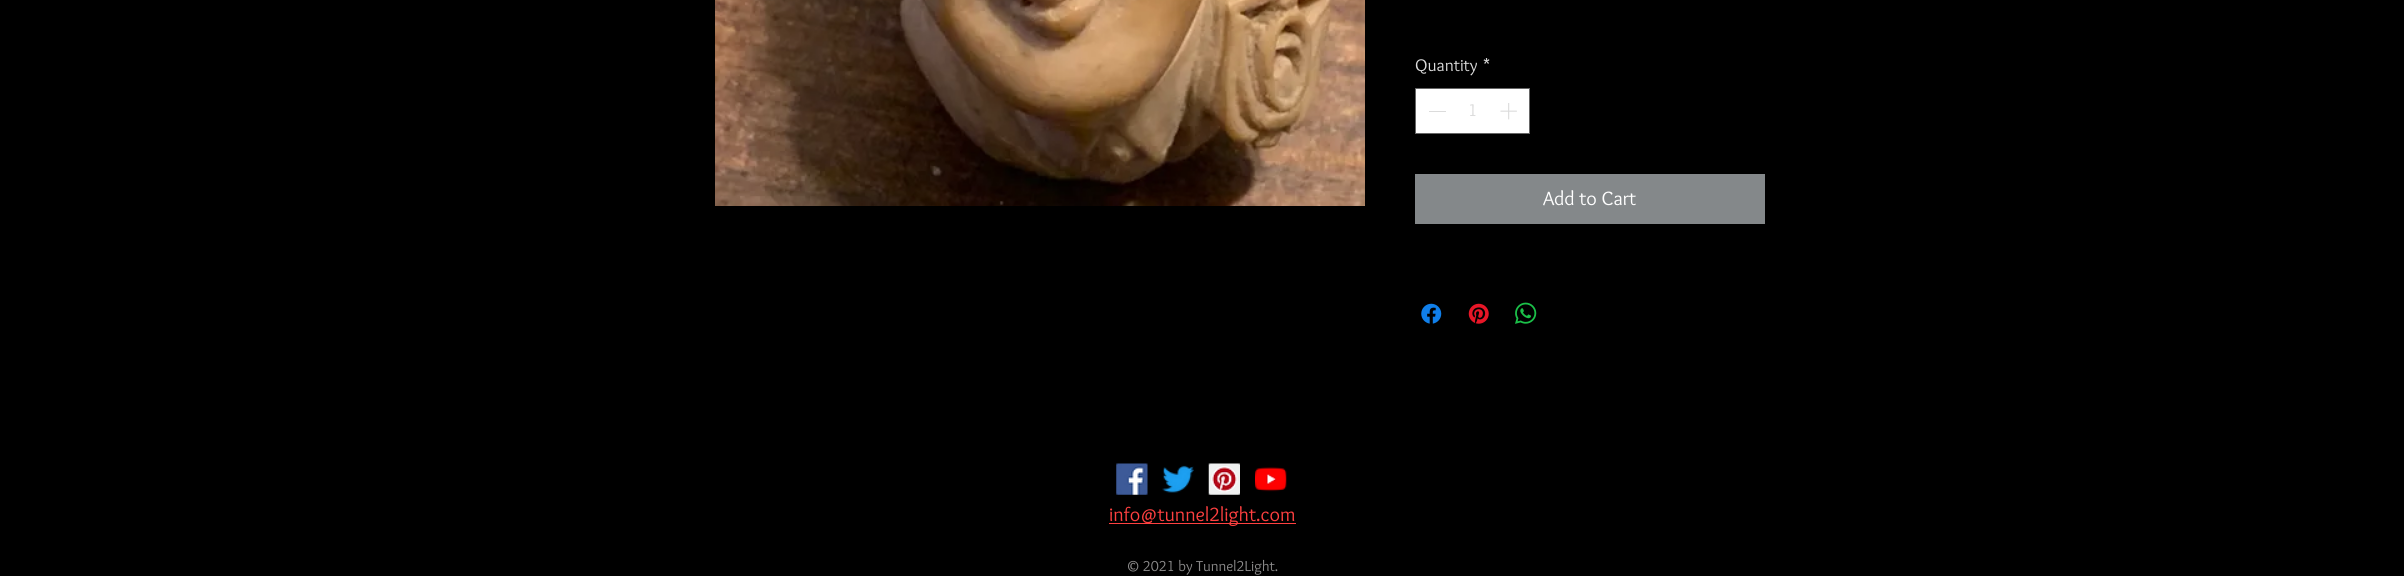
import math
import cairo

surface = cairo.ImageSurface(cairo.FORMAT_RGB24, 2404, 576)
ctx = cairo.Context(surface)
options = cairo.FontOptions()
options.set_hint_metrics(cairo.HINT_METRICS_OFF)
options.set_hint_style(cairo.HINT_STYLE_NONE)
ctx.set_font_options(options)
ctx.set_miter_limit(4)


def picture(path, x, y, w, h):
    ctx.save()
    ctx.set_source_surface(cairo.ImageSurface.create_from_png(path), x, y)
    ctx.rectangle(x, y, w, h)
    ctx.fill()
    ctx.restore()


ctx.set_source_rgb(0, 0, 0)
ctx.paint()
picture("img1.png", 715, 0, 650, 206)
ctx.select_font_face("Overlock")
ctx.set_font_size(17.5)
ctx.set_source_rgb(0.859, 0.859, 0.859)
ctx.move_to(1415, 71)
ctx.show_text("Quantity")
ctx.move_to(1483, 71)
ctx.show_text("*")
ctx.set_source_rgb(1, 1, 1)
ctx.rectangle(1415.5, 88.5, 114, 45)
ctx.fill_preserve()
ctx.set_source_rgb(0.4, 0.4, 0.4)
ctx.set_line_width(1)
ctx.stroke()
ctx.set_source_rgb(0.859, 0.859, 0.859)
ctx.rectangle(1429, 111, 17, 1)
ctx.fill()
ctx.move_to(1468, 116)
ctx.show_text("1")
picture("img2.png", 1500, 103, 17, 17)
ctx.set_source_rgb(0.518, 0.533, 0.541)
ctx.rectangle(1415, 174, 350, 50)
ctx.fill()
ctx.set_font_size(20)
ctx.set_source_rgb(1, 1, 1)
ctx.move_to(1543, 205)
ctx.show_text("Add to Cart")
picture("img3.png", 1421, 303, 21, 21)
picture("img4.png", 1468, 303, 21, 21)
picture("img5.png", 1515, 302, 22, 22)
picture("img6.png", 1116, 463, 32, 32)
picture("img7.png", 1162, 465, 32, 28)
picture("img8.png", 1208, 463, 32, 32)
picture("img9.png", 1255, 467, 32, 25)
ctx.set_source_rgb(1, 0.251, 0.251)
ctx.rectangle(1109, 523, 187, 1)
ctx.fill()
ctx.move_to(1109, 521)
ctx.show_text("info@tunnel2light.com")
ctx.set_font_size(15)
ctx.set_source_rgb(0.545, 0.541, 0.541)
ctx.move_to(1126, 571)
ctx.show_text("© 2021 by Tunnel2Light.")
surface.write_to_png("page.png")
